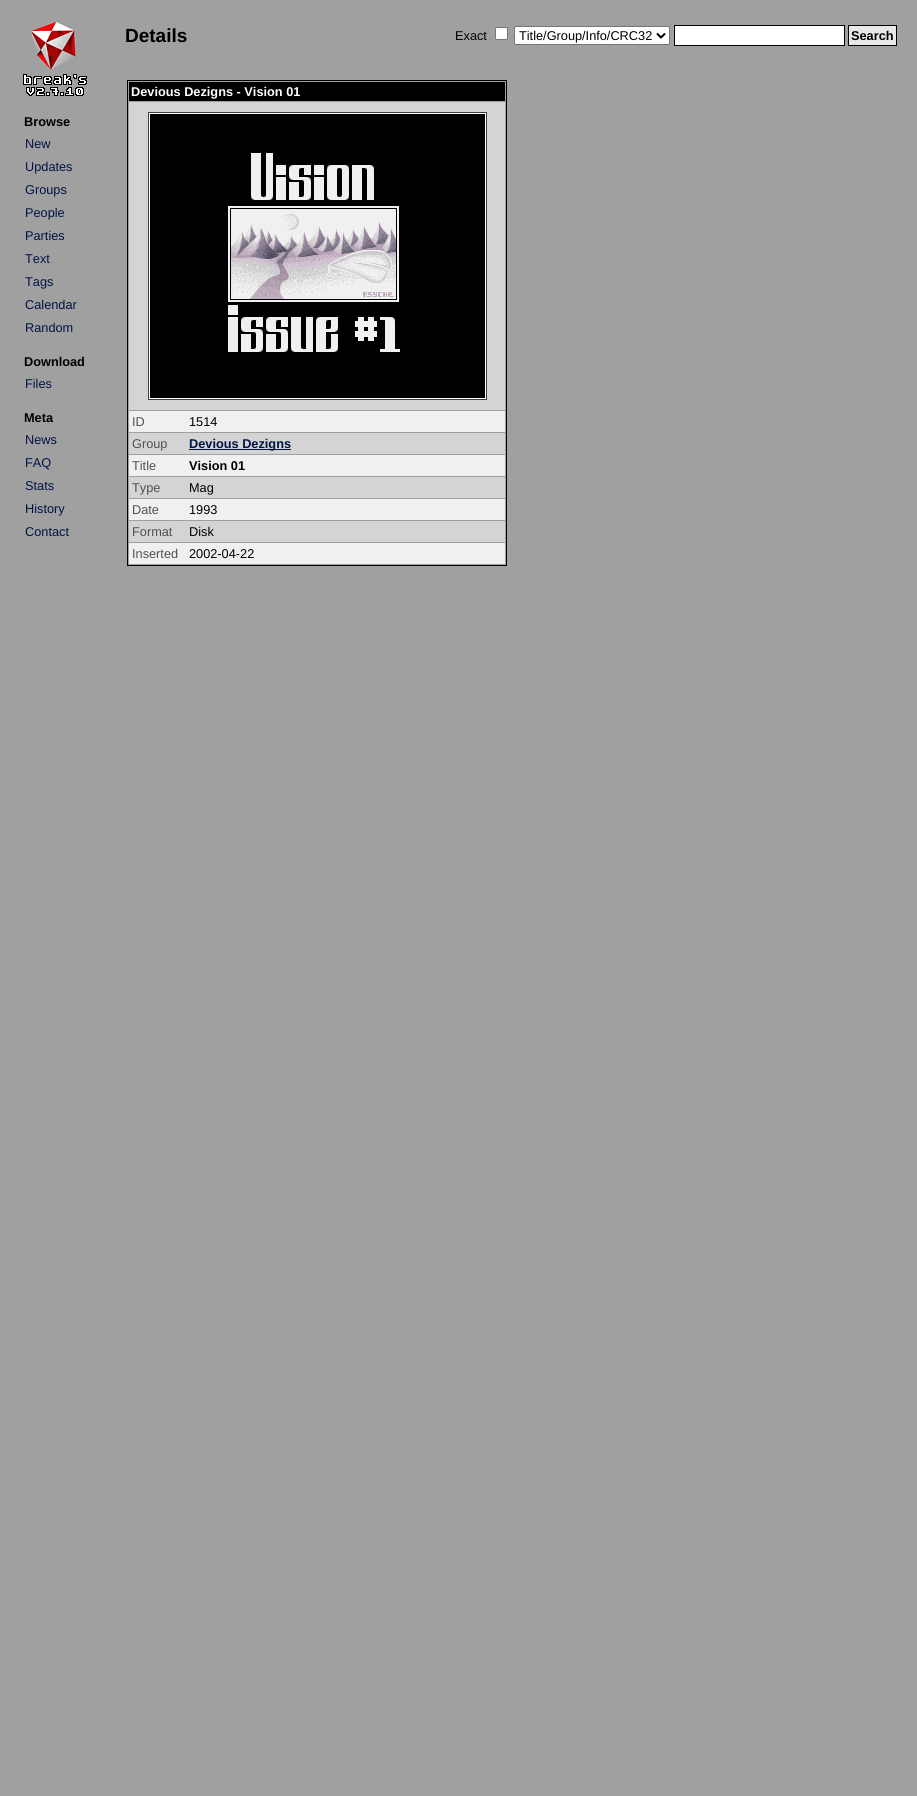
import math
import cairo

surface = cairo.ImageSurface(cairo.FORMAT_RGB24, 917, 1796)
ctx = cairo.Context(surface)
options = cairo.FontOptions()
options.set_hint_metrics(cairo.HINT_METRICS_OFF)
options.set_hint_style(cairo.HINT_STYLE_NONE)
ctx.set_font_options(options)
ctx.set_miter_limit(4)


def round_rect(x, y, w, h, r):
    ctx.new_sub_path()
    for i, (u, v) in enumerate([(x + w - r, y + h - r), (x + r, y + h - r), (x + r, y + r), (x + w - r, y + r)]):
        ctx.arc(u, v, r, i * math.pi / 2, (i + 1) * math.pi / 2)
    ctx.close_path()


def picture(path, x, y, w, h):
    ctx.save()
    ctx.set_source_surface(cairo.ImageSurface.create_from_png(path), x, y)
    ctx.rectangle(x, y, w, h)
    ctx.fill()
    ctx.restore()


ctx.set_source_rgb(0.627, 0.627, 0.627)
ctx.paint()
picture("img1.png", 23, 21, 64, 75)
ctx.select_font_face("Liberation Sans", cairo.FONT_SLANT_NORMAL, cairo.FONT_WEIGHT_BOLD)
ctx.set_font_size(12.75)
ctx.set_source_rgb(0, 0, 0)
ctx.move_to(24, 126)
ctx.show_text("Browse")
ctx.select_font_face("Liberation Sans")
ctx.set_source_rgb(0, 0.075, 0.267)
ctx.move_to(25, 148)
ctx.show_text("New")
ctx.move_to(25, 171)
ctx.show_text("Updates")
ctx.move_to(25, 194)
ctx.show_text("Groups")
ctx.move_to(25, 217)
ctx.show_text("People")
ctx.move_to(25, 240)
ctx.show_text("Parties")
ctx.move_to(25, 263)
ctx.show_text("Text")
ctx.move_to(25, 286)
ctx.show_text("Tags")
ctx.move_to(25, 309)
ctx.show_text("Calendar")
ctx.move_to(25, 332)
ctx.show_text("Random")
ctx.select_font_face("Liberation Sans", cairo.FONT_SLANT_NORMAL, cairo.FONT_WEIGHT_BOLD)
ctx.set_source_rgb(0, 0, 0)
ctx.move_to(24, 366)
ctx.show_text("Download")
ctx.select_font_face("Liberation Sans")
ctx.set_source_rgb(0, 0.075, 0.267)
ctx.move_to(25, 388)
ctx.show_text("Files")
ctx.select_font_face("Liberation Sans", cairo.FONT_SLANT_NORMAL, cairo.FONT_WEIGHT_BOLD)
ctx.set_source_rgb(0, 0, 0)
ctx.move_to(24, 422)
ctx.show_text("Meta")
ctx.select_font_face("Liberation Sans")
ctx.set_source_rgb(0, 0.075, 0.267)
ctx.move_to(25, 444)
ctx.show_text("News")
ctx.move_to(25, 467)
ctx.show_text("FAQ")
ctx.move_to(25, 490)
ctx.show_text("Stats")
ctx.move_to(25, 513)
ctx.show_text("History")
ctx.move_to(25, 536)
ctx.show_text("Contact")
ctx.select_font_face("Liberation Sans", cairo.FONT_SLANT_NORMAL, cairo.FONT_WEIGHT_BOLD)
ctx.set_font_size(19)
ctx.set_source_rgb(0, 0, 0)
ctx.move_to(125, 42)
ctx.show_text("Details")
ctx.select_font_face("Liberation Sans")
ctx.set_font_size(12.75)
ctx.move_to(455, 40)
ctx.show_text("Exact")
ctx.set_source_rgb(1, 1, 1)
round_rect(495.5, 27.5, 12, 12, 1.5)
ctx.fill_preserve()
ctx.set_source_rgb(0.463, 0.463, 0.463)
ctx.set_line_width(1)
ctx.stroke()
ctx.set_source_rgb(1, 1, 1)
round_rect(514.5, 26.5, 155, 18, 1.5)
ctx.fill_preserve()
ctx.set_source_rgb(0.463, 0.463, 0.463)
ctx.stroke()
ctx.new_path()
ctx.move_to(657, 33.5)
ctx.line_to(661, 37.5)
ctx.line_to(665, 33.5)
ctx.set_source_rgb(0, 0, 0)
ctx.set_line_width(2)
ctx.stroke()
ctx.move_to(519, 40)
ctx.show_text("Title/Group/Info/CRC32")
ctx.set_source_rgb(1, 1, 1)
ctx.rectangle(674.5, 25.5, 170, 20)
ctx.fill_preserve()
ctx.set_source_rgb(0, 0, 0)
ctx.set_line_width(1)
ctx.stroke()
ctx.set_source_rgb(0.91, 0.91, 0.91)
ctx.rectangle(848.5, 25.5, 48, 20)
ctx.fill_preserve()
ctx.set_source_rgb(0, 0, 0)
ctx.stroke()
ctx.select_font_face("Liberation Sans", cairo.FONT_SLANT_NORMAL, cairo.FONT_WEIGHT_BOLD)
ctx.move_to(851, 40)
ctx.show_text("Search")
ctx.rectangle(127.5, 80.5, 379, 485)
ctx.stroke()
ctx.rectangle(129, 82, 376, 19)
ctx.fill()
ctx.set_source_rgb(1, 1, 1)
ctx.move_to(131, 96)
ctx.show_text("Devious Dezigns - Vision 01")
ctx.set_source_rgb(0.831, 0.831, 0.831)
ctx.rectangle(129, 102, 376, 308)
ctx.fill()
ctx.set_source_rgb(1, 1, 1)
ctx.rectangle(148.5, 112.5, 338, 287)
ctx.fill_preserve()
ctx.set_source_rgb(0.251, 0.251, 0.251)
ctx.stroke()
picture("img2.png", 150, 114, 335, 284)
ctx.set_source_rgb(0.941, 0.941, 0.941)
ctx.rectangle(129, 411, 376, 21)
ctx.fill()
ctx.select_font_face("Liberation Sans")
ctx.set_source_rgb(0.314, 0.314, 0.314)
ctx.move_to(132, 426)
ctx.show_text("ID")
ctx.set_source_rgb(0, 0, 0)
ctx.move_to(189, 426)
ctx.show_text("1514")
ctx.set_source_rgb(0.831, 0.831, 0.831)
ctx.rectangle(129, 433, 376, 21)
ctx.fill()
ctx.set_source_rgb(0.314, 0.314, 0.314)
ctx.move_to(132, 448)
ctx.show_text("Group")
ctx.set_source_rgb(0, 0.075, 0.267)
ctx.rectangle(189, 449, 102, 1)
ctx.fill()
ctx.select_font_face("Liberation Sans", cairo.FONT_SLANT_NORMAL, cairo.FONT_WEIGHT_BOLD)
ctx.move_to(189, 448)
ctx.show_text("Devious Dezigns")
ctx.set_source_rgb(0.941, 0.941, 0.941)
ctx.rectangle(129, 455, 376, 21)
ctx.fill()
ctx.select_font_face("Liberation Sans")
ctx.set_source_rgb(0.314, 0.314, 0.314)
ctx.move_to(132, 470)
ctx.show_text("Title")
ctx.select_font_face("Liberation Sans", cairo.FONT_SLANT_NORMAL, cairo.FONT_WEIGHT_BOLD)
ctx.set_source_rgb(0, 0, 0)
ctx.move_to(189, 470)
ctx.show_text("Vision 01")
ctx.set_source_rgb(0.831, 0.831, 0.831)
ctx.rectangle(129, 477, 376, 21)
ctx.fill()
ctx.select_font_face("Liberation Sans")
ctx.set_source_rgb(0.314, 0.314, 0.314)
ctx.move_to(132, 492)
ctx.show_text("Type")
ctx.set_source_rgb(0, 0, 0)
ctx.move_to(189, 492)
ctx.show_text("Mag")
ctx.set_source_rgb(0.941, 0.941, 0.941)
ctx.rectangle(129, 499, 376, 21)
ctx.fill()
ctx.set_source_rgb(0.314, 0.314, 0.314)
ctx.move_to(132, 514)
ctx.show_text("Date")
ctx.set_source_rgb(0, 0, 0)
ctx.move_to(189, 514)
ctx.show_text("1993")
ctx.set_source_rgb(0.831, 0.831, 0.831)
ctx.rectangle(129, 521, 376, 21)
ctx.fill()
ctx.set_source_rgb(0.314, 0.314, 0.314)
ctx.move_to(132, 536)
ctx.show_text("Format")
ctx.set_source_rgb(0, 0, 0)
ctx.move_to(189, 536)
ctx.show_text("Disk")
ctx.set_source_rgb(0.941, 0.941, 0.941)
ctx.rectangle(129, 543, 376, 21)
ctx.fill()
ctx.set_source_rgb(0.314, 0.314, 0.314)
ctx.move_to(132, 558)
ctx.show_text("Inserted")
ctx.set_source_rgb(0, 0, 0)
ctx.move_to(189, 558)
ctx.show_text("2002-04-22")
surface.write_to_png("page.png")
